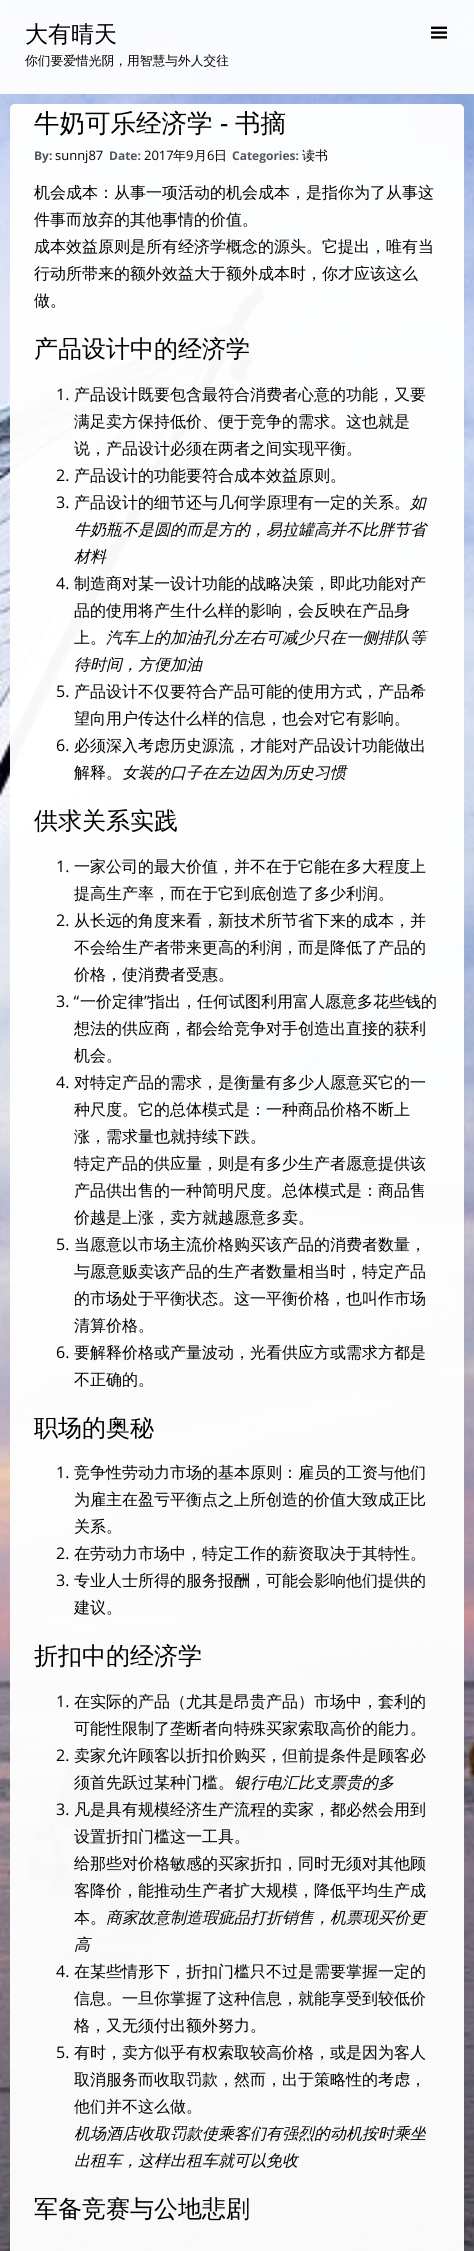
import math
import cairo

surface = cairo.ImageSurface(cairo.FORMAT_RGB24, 474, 2251)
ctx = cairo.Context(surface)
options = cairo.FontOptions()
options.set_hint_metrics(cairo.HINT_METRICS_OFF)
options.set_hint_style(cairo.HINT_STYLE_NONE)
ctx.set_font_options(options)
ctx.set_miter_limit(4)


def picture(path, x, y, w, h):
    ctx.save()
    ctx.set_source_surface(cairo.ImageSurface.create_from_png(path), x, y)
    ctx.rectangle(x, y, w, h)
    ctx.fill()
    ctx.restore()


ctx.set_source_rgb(1, 1, 1)
ctx.paint()
picture("img1.png", 0, 0, 474, 2251)
ctx.set_source_rgba(1, 1, 1, 0.95)
ctx.rectangle(0, 0, 474, 94)
ctx.fill()
ctx.select_font_face("WenQuanYi Zen Hei Medium")
ctx.set_font_size(23)
ctx.set_source_rgb(0, 0, 0)
ctx.move_to(25, 42)
ctx.show_text("大有晴天")
ctx.set_font_size(12.75)
ctx.move_to(25, 65)
ctx.show_text("你们要爱惜光阴，用智慧与外人交往")
picture("img2.png", 431, 26, 16, 13)
ctx.set_font_size(25.5)
ctx.move_to(34, 132)
ctx.show_text("牛奶可乐经济学")
ctx.select_font_face("Open Sans Medium")
ctx.move_to(220, 132)
ctx.show_text("-")
ctx.select_font_face("WenQuanYi Zen Hei Medium")
ctx.move_to(235, 132)
ctx.show_text("书摘")
ctx.select_font_face("Open Sans", cairo.FONT_SLANT_NORMAL, cairo.FONT_WEIGHT_BOLD)
ctx.set_font_size(12)
ctx.set_source_rgb(0.318, 0.337, 0.369)
ctx.move_to(34, 160)
ctx.show_text("By:")
ctx.select_font_face("Open Sans")
ctx.set_font_size(13)
ctx.set_source_rgb(0, 0, 0)
ctx.move_to(55, 160)
ctx.show_text("sunnj87")
ctx.select_font_face("Open Sans", cairo.FONT_SLANT_NORMAL, cairo.FONT_WEIGHT_BOLD)
ctx.set_font_size(12)
ctx.set_source_rgb(0.318, 0.337, 0.369)
ctx.move_to(109, 160)
ctx.show_text("Date:")
ctx.select_font_face("Open Sans")
ctx.set_font_size(13)
ctx.set_source_rgb(0, 0, 0)
ctx.move_to(144, 160)
ctx.show_text("2017")
ctx.select_font_face("WenQuanYi Zen Hei Medium")
ctx.move_to(173, 160)
ctx.show_text("年")
ctx.select_font_face("Open Sans")
ctx.move_to(186, 160)
ctx.show_text("9")
ctx.select_font_face("WenQuanYi Zen Hei Medium")
ctx.move_to(194, 160)
ctx.show_text("月")
ctx.select_font_face("Open Sans")
ctx.move_to(207, 160)
ctx.show_text("6")
ctx.select_font_face("WenQuanYi Zen Hei Medium")
ctx.move_to(214, 160)
ctx.show_text("日")
ctx.select_font_face("Open Sans", cairo.FONT_SLANT_NORMAL, cairo.FONT_WEIGHT_BOLD)
ctx.set_font_size(12)
ctx.set_source_rgb(0.318, 0.337, 0.369)
ctx.move_to(232, 160)
ctx.show_text("Categories:")
ctx.select_font_face("WenQuanYi Zen Hei Medium")
ctx.set_font_size(13)
ctx.set_source_rgb(0, 0, 0)
ctx.move_to(302, 160)
ctx.show_text("读书")
ctx.set_font_size(16)
ctx.move_to(34, 198)
ctx.show_text("机会成本：从事一项活动的机会成本，是指你为了从事这")
ctx.move_to(34, 225)
ctx.show_text("件事而放弃的其他事情的价值。")
ctx.move_to(34, 252)
ctx.show_text("成本效益原则是所有经济学概念的源头。它提出，唯有当")
ctx.move_to(34, 279)
ctx.show_text("行动所带来的额外效益大于额外成本时，你才应该这么")
ctx.move_to(34, 306)
ctx.show_text("做。")
ctx.set_font_size(24)
ctx.move_to(34, 357)
ctx.show_text("产品设计中的经济学")
ctx.select_font_face("Open Sans")
ctx.set_font_size(16)
ctx.move_to(56, 400)
ctx.show_text("1.")
ctx.select_font_face("WenQuanYi Zen Hei Medium")
ctx.move_to(74, 400)
ctx.show_text("产品设计既要包含最符合消费者心意的功能，又要")
ctx.move_to(74, 427)
ctx.show_text("满足卖方保持低价、便于竞争的需求。这也就是")
ctx.move_to(74, 454)
ctx.show_text("说，产品设计必须在两者之间实现平衡。")
ctx.select_font_face("Open Sans")
ctx.move_to(56, 481)
ctx.show_text("2.")
ctx.select_font_face("WenQuanYi Zen Hei Medium")
ctx.move_to(74, 481)
ctx.show_text("产品设计的功能要符合成本效益原则。")
ctx.select_font_face("Open Sans")
ctx.move_to(56, 508)
ctx.show_text("3.")
ctx.select_font_face("WenQuanYi Zen Hei Medium")
ctx.move_to(74, 508)
ctx.show_text("产品设计的细节还与几何学原理有一定的关系。")
ctx.select_font_face("WenQuanYi Zen Hei Medium", cairo.FONT_SLANT_ITALIC)
ctx.move_to(410, 508)
ctx.show_text("如")
ctx.move_to(74, 535)
ctx.show_text("牛奶瓶不是圆的而是方的，易拉罐高并不比胖节省")
ctx.move_to(74, 562)
ctx.show_text("材料")
ctx.select_font_face("Open Sans")
ctx.move_to(56, 589)
ctx.show_text("4.")
ctx.select_font_face("WenQuanYi Zen Hei Medium")
ctx.move_to(74, 589)
ctx.show_text("制造商对某一设计功能的战略决策，即此功能对产")
ctx.move_to(74, 616)
ctx.show_text("品的使用将产生什么样的影响，会反映在产品身")
ctx.move_to(74, 643)
ctx.show_text("上。")
ctx.select_font_face("WenQuanYi Zen Hei Medium", cairo.FONT_SLANT_ITALIC)
ctx.move_to(106, 643)
ctx.show_text("汽车上的加油孔分左右可减少只在一侧排队等")
ctx.move_to(74, 670)
ctx.show_text("待时间，方便加油")
ctx.select_font_face("Open Sans")
ctx.move_to(56, 697)
ctx.show_text("5.")
ctx.select_font_face("WenQuanYi Zen Hei Medium")
ctx.move_to(74, 697)
ctx.show_text("产品设计不仅要符合产品可能的使用方式，产品希")
ctx.move_to(74, 724)
ctx.show_text("望向用户传达什么样的信息，也会对它有影响。")
ctx.select_font_face("Open Sans")
ctx.move_to(56, 751)
ctx.show_text("6.")
ctx.select_font_face("WenQuanYi Zen Hei Medium")
ctx.move_to(74, 751)
ctx.show_text("必须深入考虑历史源流，才能对产品设计功能做出")
ctx.move_to(74, 778)
ctx.show_text("解释。")
ctx.select_font_face("WenQuanYi Zen Hei Medium", cairo.FONT_SLANT_ITALIC)
ctx.move_to(122, 778)
ctx.show_text("女装的口子在左边因为历史习惯")
ctx.select_font_face("WenQuanYi Zen Hei Medium")
ctx.set_font_size(24)
ctx.move_to(34, 829)
ctx.show_text("供求关系实践")
ctx.select_font_face("Open Sans")
ctx.set_font_size(16)
ctx.move_to(56, 872)
ctx.show_text("1.")
ctx.select_font_face("WenQuanYi Zen Hei Medium")
ctx.move_to(74, 872)
ctx.show_text("一家公司的最大价值，并不在于它能在多大程度上")
ctx.move_to(74, 899)
ctx.show_text("提高生产率，而在于它到底创造了多少利润。")
ctx.select_font_face("Open Sans")
ctx.move_to(56, 926)
ctx.show_text("2.")
ctx.select_font_face("WenQuanYi Zen Hei Medium")
ctx.move_to(74, 926)
ctx.show_text("从长远的角度来看，新技术所节省下来的成本，并")
ctx.move_to(74, 953)
ctx.show_text("不会给生产者带来更高的利润，而是降低了产品的")
ctx.move_to(74, 980)
ctx.show_text("价格，使消费者受惠。")
ctx.select_font_face("Open Sans")
ctx.move_to(56, 1007)
ctx.show_text("3. “")
ctx.select_font_face("WenQuanYi Zen Hei Medium")
ctx.move_to(80, 1007)
ctx.show_text("一价定律")
ctx.select_font_face("Open Sans")
ctx.move_to(144, 1007)
ctx.show_text("”")
ctx.select_font_face("WenQuanYi Zen Hei Medium")
ctx.move_to(149, 1007)
ctx.show_text("指出，任何试图利用富人愿意多花些钱的")
ctx.move_to(74, 1034)
ctx.show_text("想法的供应商，都会给竞争对手创造出直接的获利")
ctx.move_to(74, 1061)
ctx.show_text("机会。")
ctx.select_font_face("Open Sans")
ctx.move_to(56, 1088)
ctx.show_text("4.")
ctx.select_font_face("WenQuanYi Zen Hei Medium")
ctx.move_to(74, 1088)
ctx.show_text("对特定产品的需求，是衡量有多少人愿意买它的一")
ctx.move_to(74, 1115)
ctx.show_text("种尺度。它的总体模式是：一种商品价格不断上")
ctx.move_to(74, 1142)
ctx.show_text("涨，需求量也就持续下跌。")
ctx.move_to(74, 1169)
ctx.show_text("特定产品的供应量，则是有多少生产者愿意提供该")
ctx.move_to(74, 1196)
ctx.show_text("产品供出售的一种简明尺度。总体模式是：商品售")
ctx.move_to(74, 1223)
ctx.show_text("价越是上涨，卖方就越愿意多卖。")
ctx.select_font_face("Open Sans")
ctx.move_to(56, 1250)
ctx.show_text("5.")
ctx.select_font_face("WenQuanYi Zen Hei Medium")
ctx.move_to(74, 1250)
ctx.show_text("当愿意以市场主流价格购买该产品的消费者数量，")
ctx.move_to(74, 1277)
ctx.show_text("与愿意贩卖该产品的生产者数量相当时，特定产品")
ctx.move_to(74, 1304)
ctx.show_text("的市场处于平衡状态。这一平衡价格，也叫作市场")
ctx.move_to(74, 1331)
ctx.show_text("清算价格。")
ctx.select_font_face("Open Sans")
ctx.move_to(56, 1358)
ctx.show_text("6.")
ctx.select_font_face("WenQuanYi Zen Hei Medium")
ctx.move_to(74, 1358)
ctx.show_text("要解释价格或产量波动，光看供应方或需求方都是")
ctx.move_to(74, 1385)
ctx.show_text("不正确的。")
ctx.set_font_size(24)
ctx.move_to(34, 1436)
ctx.show_text("职场的奥秘")
ctx.select_font_face("Open Sans")
ctx.set_font_size(16)
ctx.move_to(56, 1478)
ctx.show_text("1.")
ctx.select_font_face("WenQuanYi Zen Hei Medium")
ctx.move_to(74, 1478)
ctx.show_text("竞争性劳动力市场的基本原则：雇员的工资与他们")
ctx.move_to(74, 1505)
ctx.show_text("为雇主在盈亏平衡点之上所创造的价值大致成正比")
ctx.move_to(74, 1532)
ctx.show_text("关系。")
ctx.select_font_face("Open Sans")
ctx.move_to(56, 1559)
ctx.show_text("2.")
ctx.select_font_face("WenQuanYi Zen Hei Medium")
ctx.move_to(74, 1559)
ctx.show_text("在劳动力市场中，特定工作的薪资取决于其特性。")
ctx.select_font_face("Open Sans")
ctx.move_to(56, 1586)
ctx.show_text("3.")
ctx.select_font_face("WenQuanYi Zen Hei Medium")
ctx.move_to(74, 1586)
ctx.show_text("专业人士所得的服务报酬，可能会影响他们提供的")
ctx.move_to(74, 1613)
ctx.show_text("建议。")
ctx.set_font_size(24)
ctx.move_to(34, 1664)
ctx.show_text("折扣中的经济学")
ctx.select_font_face("Open Sans")
ctx.set_font_size(16)
ctx.move_to(56, 1707)
ctx.show_text("1.")
ctx.select_font_face("WenQuanYi Zen Hei Medium")
ctx.move_to(74, 1707)
ctx.show_text("在实际的产品（尤其是昂贵产品）市场中，套利的")
ctx.move_to(74, 1734)
ctx.show_text("可能性限制了垄断者向特殊买家索取高价的能力。")
ctx.select_font_face("Open Sans")
ctx.move_to(56, 1761)
ctx.show_text("2.")
ctx.select_font_face("WenQuanYi Zen Hei Medium")
ctx.move_to(74, 1761)
ctx.show_text("卖家允许顾客以折扣价购买，但前提条件是顾客必")
ctx.move_to(74, 1788)
ctx.show_text("须首先跃过某种门槛。")
ctx.select_font_face("WenQuanYi Zen Hei Medium", cairo.FONT_SLANT_ITALIC)
ctx.move_to(234, 1788)
ctx.show_text("银行电汇比支票贵的多")
ctx.select_font_face("Open Sans")
ctx.move_to(56, 1815)
ctx.show_text("3.")
ctx.select_font_face("WenQuanYi Zen Hei Medium")
ctx.move_to(74, 1815)
ctx.show_text("凡是具有规模经济生产流程的卖家，都必然会用到")
ctx.move_to(74, 1842)
ctx.show_text("设置折扣门槛这一工具。")
ctx.move_to(74, 1869)
ctx.show_text("给那些对价格敏感的买家折扣，同时无须对其他顾")
ctx.move_to(74, 1896)
ctx.show_text("客降价，能推动生产者扩大规模，降低平均生产成")
ctx.move_to(74, 1923)
ctx.show_text("本。")
ctx.select_font_face("WenQuanYi Zen Hei Medium", cairo.FONT_SLANT_ITALIC)
ctx.move_to(106, 1923)
ctx.show_text("商家故意制造瑕疵品打折销售，机票现买价更")
ctx.move_to(74, 1950)
ctx.show_text("高")
ctx.select_font_face("Open Sans")
ctx.move_to(56, 1977)
ctx.show_text("4.")
ctx.select_font_face("WenQuanYi Zen Hei Medium")
ctx.move_to(74, 1977)
ctx.show_text("在某些情形下，折扣门槛只不过是需要掌握一定的")
ctx.move_to(74, 2004)
ctx.show_text("信息。一旦你掌握了这种信息，就能享受到较低价")
ctx.move_to(74, 2031)
ctx.show_text("格，又无须付出额外努力。")
ctx.select_font_face("Open Sans")
ctx.move_to(56, 2058)
ctx.show_text("5.")
ctx.select_font_face("WenQuanYi Zen Hei Medium")
ctx.move_to(74, 2058)
ctx.show_text("有时，卖方似乎有权索取较高价格，或是因为客人")
ctx.move_to(74, 2085)
ctx.show_text("取消服务而收取罚款，然而，出于策略性的考虑，")
ctx.move_to(74, 2112)
ctx.show_text("他们并不这么做。")
ctx.select_font_face("WenQuanYi Zen Hei Medium", cairo.FONT_SLANT_ITALIC)
ctx.move_to(74, 2139)
ctx.show_text("机场酒店收取罚款使乘客们有强烈的动机按时乘坐")
ctx.move_to(74, 2166)
ctx.show_text("出租车，这样出租车就可以免收")
ctx.select_font_face("WenQuanYi Zen Hei Medium")
ctx.set_font_size(24)
ctx.move_to(34, 2217)
ctx.show_text("军备竞赛与公地悲剧")
surface.write_to_png("page.png")
